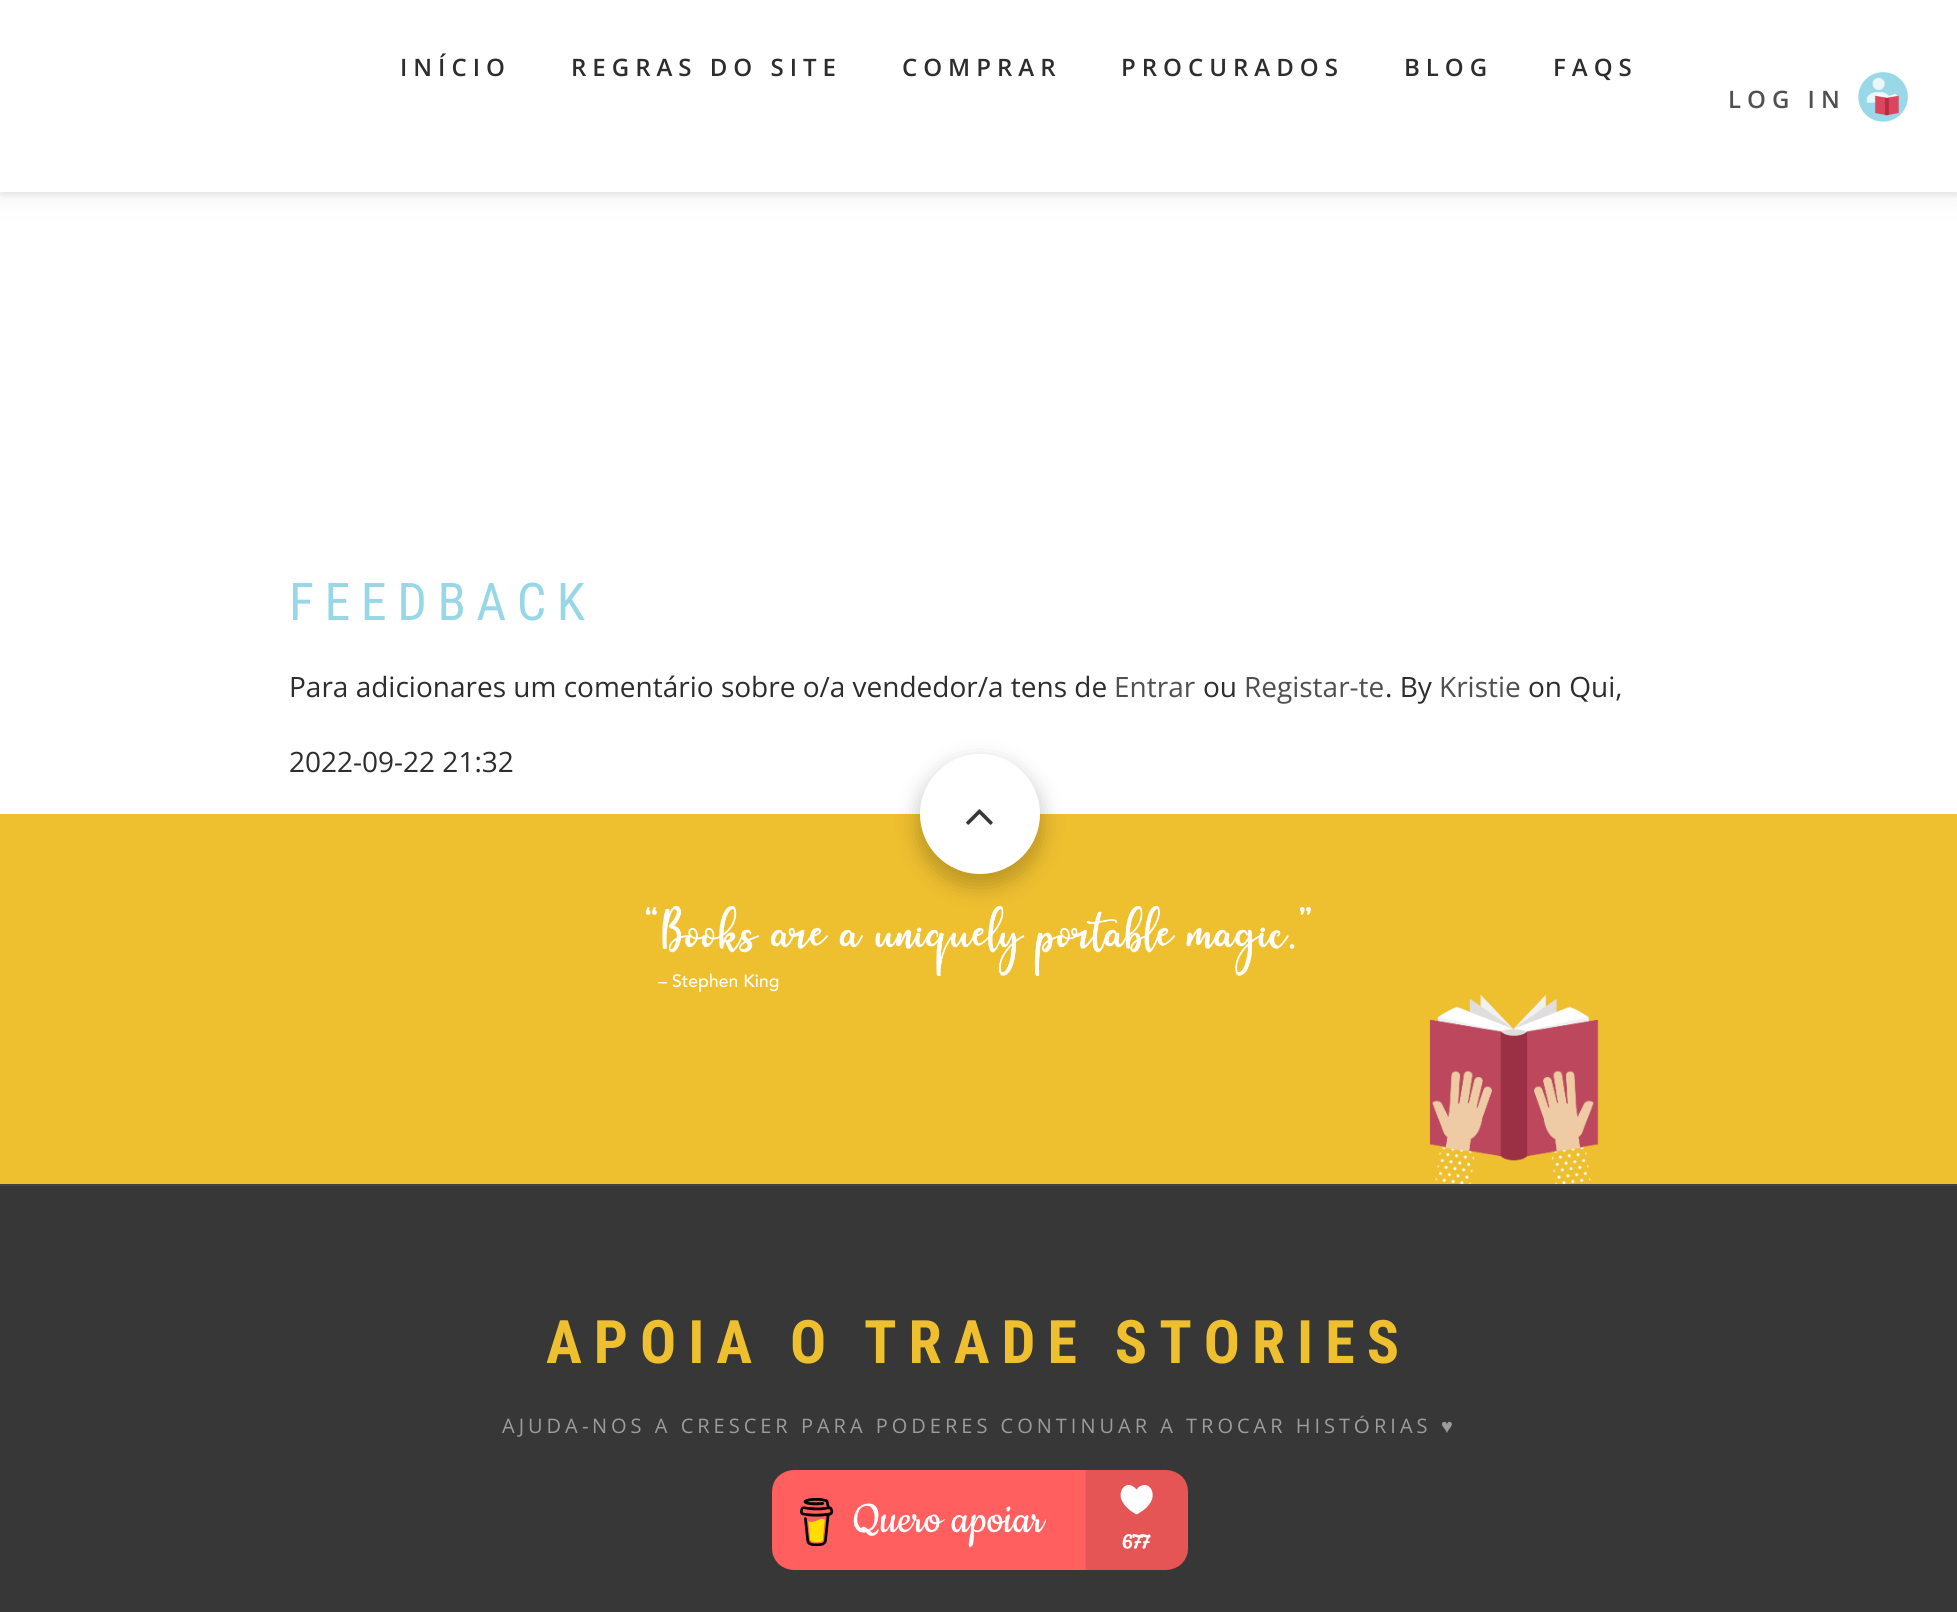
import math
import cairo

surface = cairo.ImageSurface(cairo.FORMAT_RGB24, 1957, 1612)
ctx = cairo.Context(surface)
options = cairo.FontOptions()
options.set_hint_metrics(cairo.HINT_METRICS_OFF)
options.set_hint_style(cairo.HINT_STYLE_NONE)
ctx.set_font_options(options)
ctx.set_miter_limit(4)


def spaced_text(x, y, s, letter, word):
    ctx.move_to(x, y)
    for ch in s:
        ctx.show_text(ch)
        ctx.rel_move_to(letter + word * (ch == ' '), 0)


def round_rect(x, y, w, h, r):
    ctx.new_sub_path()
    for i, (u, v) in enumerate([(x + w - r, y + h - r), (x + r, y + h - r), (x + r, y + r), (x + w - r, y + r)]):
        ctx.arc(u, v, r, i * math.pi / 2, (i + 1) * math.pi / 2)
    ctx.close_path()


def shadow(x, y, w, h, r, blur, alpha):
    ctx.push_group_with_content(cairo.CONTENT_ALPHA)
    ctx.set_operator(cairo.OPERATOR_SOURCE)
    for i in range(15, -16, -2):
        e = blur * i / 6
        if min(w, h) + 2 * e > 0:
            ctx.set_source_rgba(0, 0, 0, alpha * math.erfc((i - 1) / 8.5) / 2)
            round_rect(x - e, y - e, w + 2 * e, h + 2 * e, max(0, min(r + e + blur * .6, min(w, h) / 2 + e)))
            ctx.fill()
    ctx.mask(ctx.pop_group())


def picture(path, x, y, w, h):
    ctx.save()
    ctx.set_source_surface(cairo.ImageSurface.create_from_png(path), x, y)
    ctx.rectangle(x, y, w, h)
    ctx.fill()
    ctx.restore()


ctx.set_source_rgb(1, 1, 1)
ctx.paint()
ctx.set_source_rgb(0.392, 0.392, 0.392)
shadow(0, 4, 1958, 192, 0, 2, 0.1)
shadow(0, 4, 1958, 192, 0, 14, 0.1)
ctx.set_source_rgb(1, 1, 1)
ctx.rectangle(0, 0, 1957, 192)
ctx.fill()
ctx.select_font_face("Open Sans SemiBold")
ctx.set_font_size(24)
ctx.set_source_rgb(0.176, 0.176, 0.176)
spaced_text(400, 76, "INÍCIO", 6, 0)
spaced_text(571, 76, "REGRAS DO SITE", 6, 0)
spaced_text(902, 76, "COMPRAR", 6, 0)
spaced_text(1121, 76, "PROCURADOS", 6, 0)
spaced_text(1404, 76, "BLOG", 6, 0)
spaced_text(1553, 76, "FAQS", 6, 0)
ctx.set_source_rgb(0.314, 0.314, 0.314)
spaced_text(1728, 108, "LOG IN", 6, 0)
picture("img1.png", 1858, 72, 50, 50)
ctx.select_font_face("Roboto Condensed")
ctx.set_font_size(52)
ctx.set_source_rgb(0.596, 0.847, 0.902)
spaced_text(289, 620, "FEEDBACK", 10.5, 0)
ctx.select_font_face("Open Sans")
ctx.set_font_size(28)
ctx.set_source_rgb(0.176, 0.176, 0.176)
ctx.move_to(289, 697)
ctx.show_text("Para adicionares um comentário sobre o/a vendedor/a tens de")
ctx.set_source_rgb(0.314, 0.314, 0.314)
ctx.move_to(1114, 697)
ctx.show_text("Entrar")
ctx.set_source_rgb(0.176, 0.176, 0.176)
ctx.move_to(1203, 697)
ctx.show_text("ou")
ctx.set_source_rgb(0.314, 0.314, 0.314)
ctx.move_to(1244, 697)
ctx.show_text("Registar-te")
ctx.set_source_rgb(0.176, 0.176, 0.176)
ctx.move_to(1385, 697)
ctx.show_text(". By")
ctx.set_source_rgb(0.314, 0.314, 0.314)
ctx.move_to(1439, 697)
ctx.show_text("Kristie")
ctx.set_source_rgb(0.176, 0.176, 0.176)
ctx.move_to(1528, 697)
ctx.show_text("on Qui,")
ctx.move_to(289, 772)
ctx.show_text("2022-09-22 21:32")
ctx.set_source_rgb(0.933, 0.749, 0.184)
ctx.rectangle(0, 814, 1957, 370)
ctx.fill()
picture("img4.png", 645, 905, 666, 87)
ctx.set_source_rgb(0, 0, 0)
shadow(916, 760, 128, 128, 64, 10, 0.2)
ctx.set_source_rgb(1, 1, 1)
ctx.arc(980, 814, 60, 0, 2 * math.pi)
ctx.fill()
picture("img2.png", 966, 809, 27, 16)
picture("img3.png", 1429, 994, 170, 190)
ctx.set_source_rgb(0.216, 0.216, 0.216)
ctx.rectangle(0, 1186, 1957, 426)
ctx.fill()
ctx.set_source_rgb(0.263, 0.263, 0.263)
ctx.rectangle(0, 1184, 1957, 2)
ctx.fill()
ctx.select_font_face("Roboto Condensed", cairo.FONT_SLANT_NORMAL, cairo.FONT_WEIGHT_BOLD)
ctx.set_font_size(60)
ctx.set_source_rgb(0.933, 0.749, 0.184)
spaced_text(546, 1363, "APOIA O TRADE STORIES", 12, 0)
ctx.select_font_face("Open Sans")
ctx.set_font_size(20)
ctx.set_source_rgb(0.612, 0.612, 0.612)
spaced_text(502, 1433, "AJUDA", 4, 0)
ctx.select_font_face("Liberation Sans")
spaced_text(582, 1433, "-", 4, 0)
ctx.select_font_face("Open Sans")
spaced_text(592, 1433, "NOS A CRESCER PARA PODERES CONTINUAR A TROCAR HIST", 4, 0)
ctx.select_font_face("Liberation Sans")
spaced_text(1354, 1433, "Ó", 4, 0)
ctx.select_font_face("Open Sans")
spaced_text(1374, 1433, "RIAS", 4, 0)
ctx.select_font_face("Liberation Sans")
spaced_text(1441, 1433, "♥", 4, 0)
picture("img5.png", 772, 1470, 416, 100)
surface.write_to_png("page.png")
